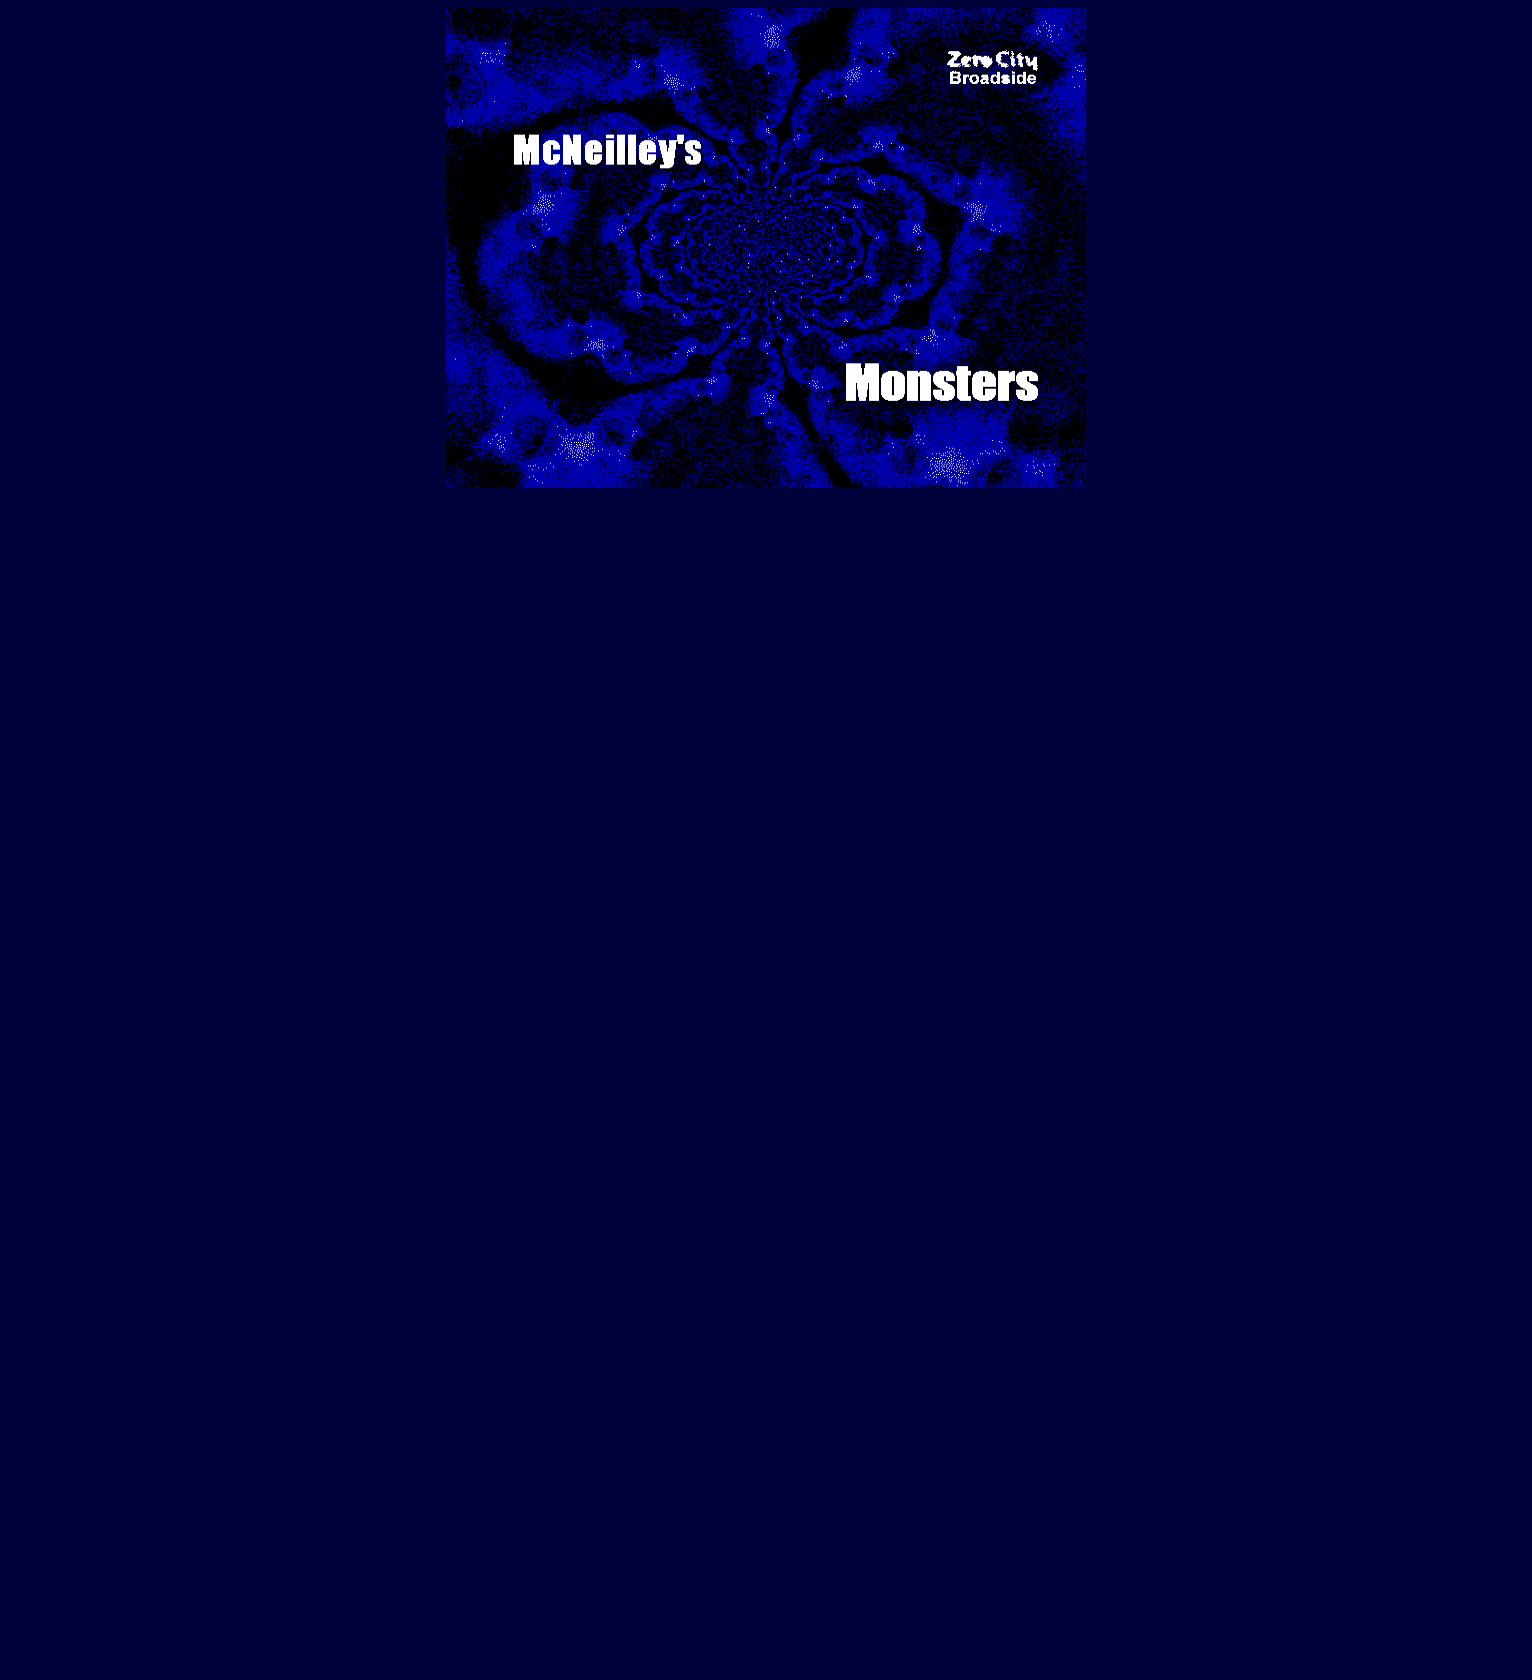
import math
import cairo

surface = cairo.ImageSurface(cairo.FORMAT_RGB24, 1532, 1680)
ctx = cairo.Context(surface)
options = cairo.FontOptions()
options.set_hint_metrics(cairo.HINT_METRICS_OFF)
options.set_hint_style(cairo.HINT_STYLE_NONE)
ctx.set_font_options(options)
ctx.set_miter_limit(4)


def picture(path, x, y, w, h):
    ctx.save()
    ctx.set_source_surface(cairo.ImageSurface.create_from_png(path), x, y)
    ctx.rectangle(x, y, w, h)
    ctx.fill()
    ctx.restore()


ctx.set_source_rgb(0, 0, 0.227)
ctx.paint()
picture("img1.png", 446, 8, 640, 480)
surface.write_to_png("page.png")
